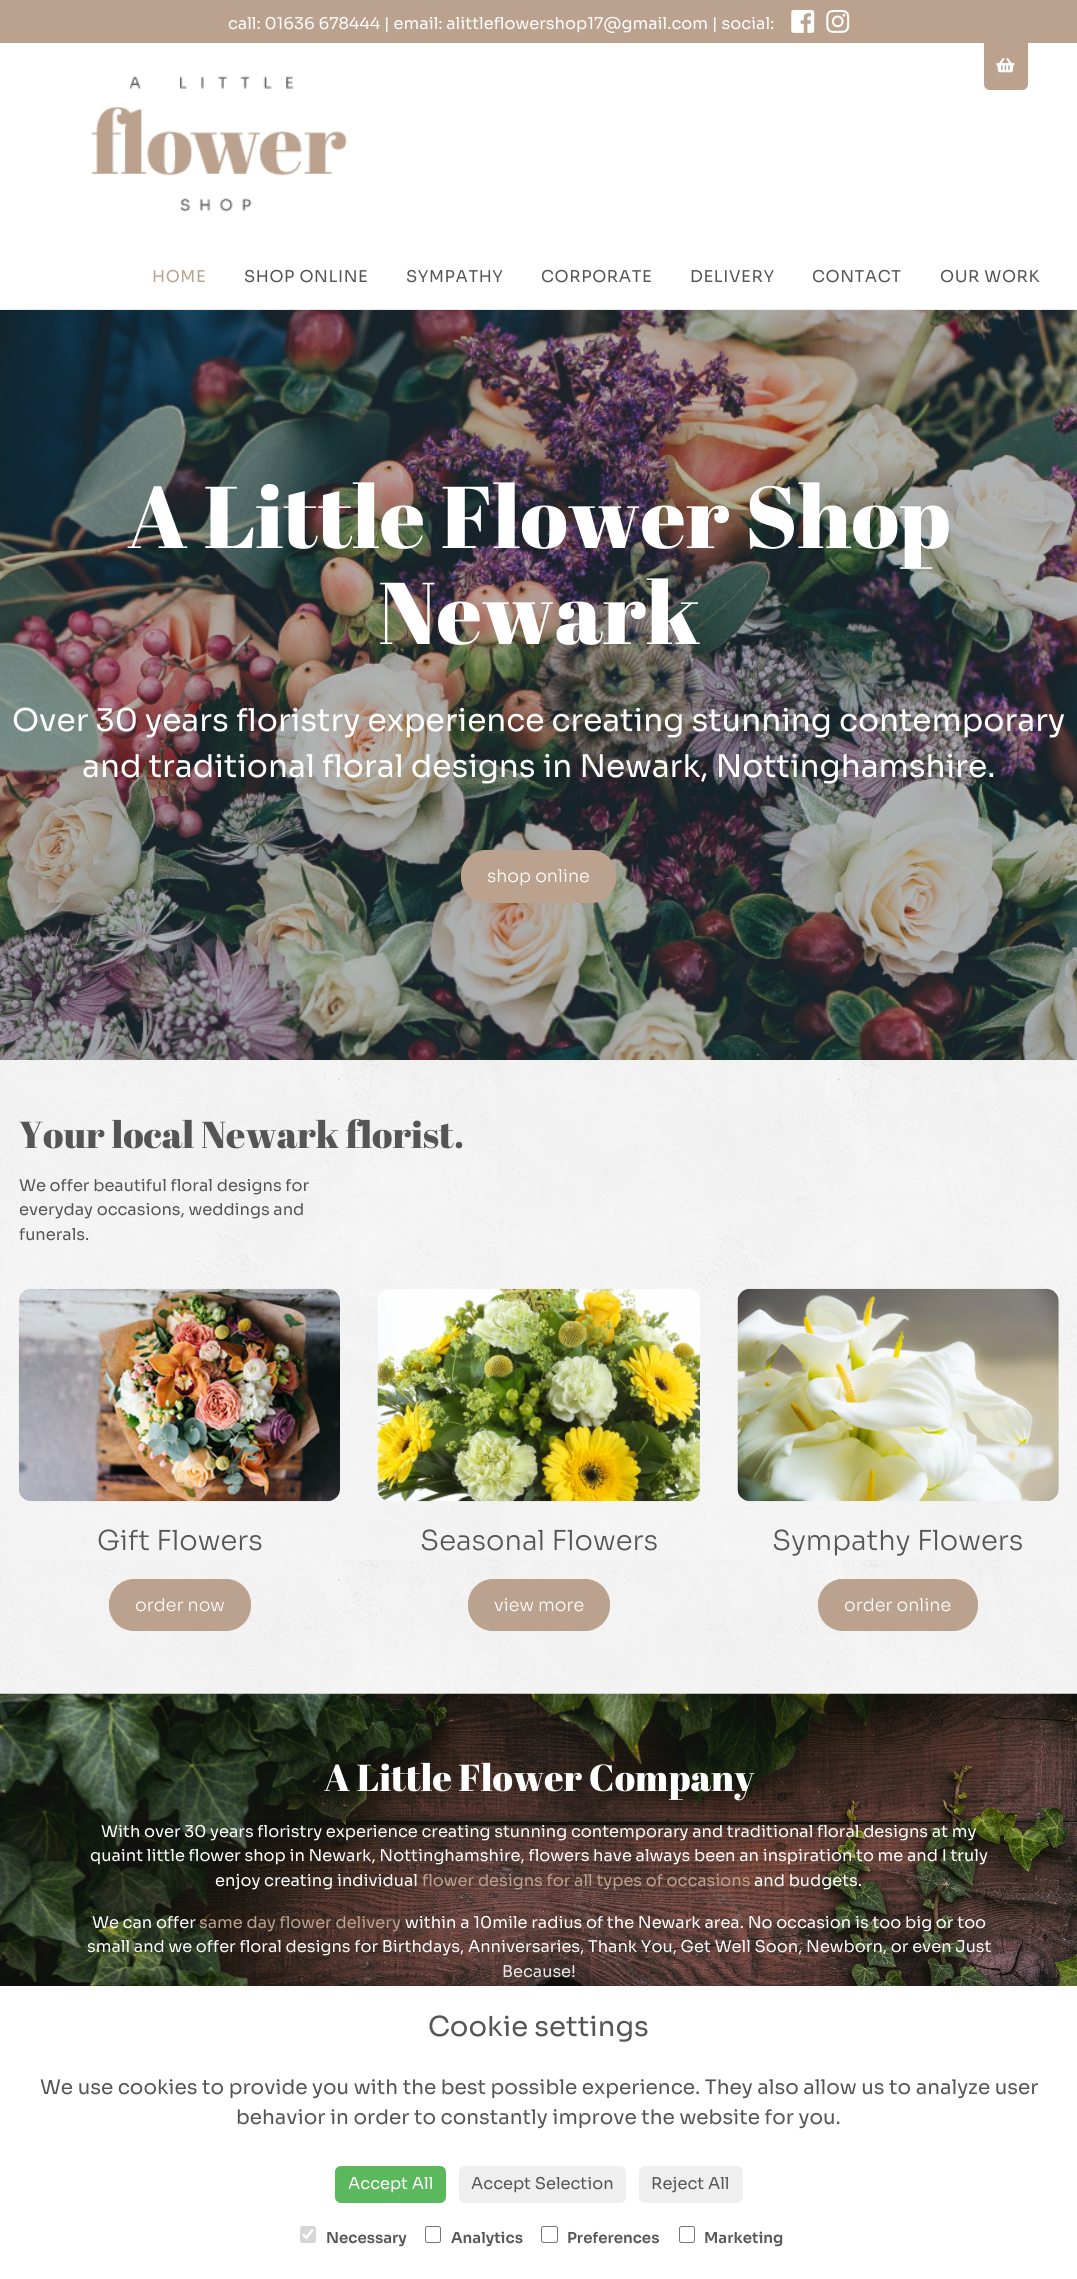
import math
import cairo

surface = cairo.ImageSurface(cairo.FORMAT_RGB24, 1077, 2279)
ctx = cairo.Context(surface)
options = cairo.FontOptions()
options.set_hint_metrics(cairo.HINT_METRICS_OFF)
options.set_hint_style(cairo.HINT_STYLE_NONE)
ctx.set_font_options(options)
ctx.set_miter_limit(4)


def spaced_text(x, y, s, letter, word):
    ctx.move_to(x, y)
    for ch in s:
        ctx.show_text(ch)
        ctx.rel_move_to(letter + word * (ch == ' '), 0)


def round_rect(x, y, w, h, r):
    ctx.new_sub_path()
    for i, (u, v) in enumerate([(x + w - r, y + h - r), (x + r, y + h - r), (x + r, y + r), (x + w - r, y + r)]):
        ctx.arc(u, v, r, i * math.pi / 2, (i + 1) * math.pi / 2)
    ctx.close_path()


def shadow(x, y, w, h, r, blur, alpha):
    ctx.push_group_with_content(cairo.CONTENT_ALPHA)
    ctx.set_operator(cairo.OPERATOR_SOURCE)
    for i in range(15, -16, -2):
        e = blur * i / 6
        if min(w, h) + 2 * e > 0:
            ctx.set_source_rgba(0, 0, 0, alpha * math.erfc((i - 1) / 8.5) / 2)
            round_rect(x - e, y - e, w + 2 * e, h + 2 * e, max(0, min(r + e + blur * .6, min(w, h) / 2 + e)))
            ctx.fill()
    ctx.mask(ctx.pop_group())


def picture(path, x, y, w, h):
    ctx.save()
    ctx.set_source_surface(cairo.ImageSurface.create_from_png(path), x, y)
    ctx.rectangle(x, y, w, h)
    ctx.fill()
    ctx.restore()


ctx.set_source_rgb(1, 1, 1)
ctx.paint()
ctx.set_source_rgb(0.925, 0.925, 0.925)
ctx.rectangle(0, 309, 1077, 1)
ctx.fill()
ctx.set_source_rgb(0.733, 0.635, 0.557)
ctx.rectangle(0, 0, 1077, 43)
ctx.fill()
ctx.select_font_face("Sora")
ctx.set_font_size(16.25)
ctx.set_source_rgb(1, 1, 1)
ctx.move_to(228, 29)
ctx.show_text("call: 01636 678444 | email: alittleflowershop17@gmail.com | social:")
picture("img1.png", 791, 9, 24, 24)
picture("img2.png", 826, 9, 24, 24)
ctx.set_source_rgb(0.733, 0.635, 0.557)
ctx.new_path()
ctx.move_to(984, 43)
ctx.line_to(1028, 43)
ctx.line_to(1028, 84)
ctx.curve_to(1028, 87.5, 1025.5, 90, 1022, 90)
ctx.line_to(990, 90)
ctx.curve_to(986.5, 90, 984, 87.5, 984, 84)
ctx.close_path()
ctx.fill()
picture("img3.png", 996, 58, 19, 15)
picture("img4.png", 91, 76, 256, 136)
spaced_text(152, 282, "HOME", 0.6, 0)
ctx.set_source_rgb(0.333, 0.333, 0.333)
spaced_text(244, 282, "SHOP ONLINE", 0.6, 0)
spaced_text(406, 282, "SYMPATHY", 0.6, 0)
spaced_text(541, 282, "CORPORATE", 0.6, 0)
spaced_text(690, 282, "DELIVERY", 0.6, 0)
spaced_text(812, 282, "CONTACT", 0.6, 0)
spaced_text(940, 282, "OUR WORK", 0.6, 0)
picture("img5.png", 0, 310, 1077, 750)
ctx.select_font_face("Abril Fatface")
ctx.set_font_size(87.5)
ctx.set_source_rgb(1, 1, 1)
ctx.move_to(127, 548)
ctx.show_text("A Little Flower Shop")
ctx.move_to(378, 644)
ctx.show_text("Newark")
ctx.select_font_face("Sora")
ctx.set_font_size(31.25)
ctx.move_to(12, 731)
ctx.show_text("Over 30 years floristry experience creating stunning contemporary")
ctx.move_to(82, 777)
ctx.show_text("and traditional floral designs in Newark, Nottinghamshire.")
ctx.set_source_rgb(0.733, 0.635, 0.557)
round_rect(461.5, 850.5, 154, 52, 24.5)
ctx.fill_preserve()
ctx.set_line_width(1)
ctx.stroke()
ctx.select_font_face("Sora Light")
ctx.set_font_size(17.5)
ctx.set_source_rgb(1, 1, 1)
ctx.move_to(487, 882)
ctx.show_text("shop online")
picture("img6.png", 0, 1060, 1077, 634)
ctx.select_font_face("Abril Fatface")
ctx.set_font_size(37.5)
ctx.set_source_rgb(0.333, 0.333, 0.333)
ctx.move_to(19, 1148)
ctx.show_text("Your local Newark florist.")
ctx.select_font_face("Sora")
ctx.set_font_size(16.25)
ctx.move_to(19, 1191)
ctx.show_text("We offer beautiful floral designs for")
ctx.move_to(19, 1215)
ctx.show_text("everyday occasions, weddings and")
ctx.move_to(19, 1240)
ctx.show_text("funerals.")
ctx.set_source_rgb(0.957, 0.957, 0.957)
ctx.rectangle(19, 1289, 321, 212)
ctx.fill()
picture("img7.png", 18, 1288, 322, 214)
ctx.select_font_face("Sora Light")
ctx.set_font_size(27.5)
ctx.set_source_rgb(0.333, 0.333, 0.333)
ctx.move_to(97, 1550)
ctx.show_text("Gift Flowers")
ctx.set_source_rgb(0.733, 0.635, 0.557)
round_rect(109.5, 1579.5, 141, 51, 24.5)
ctx.fill_preserve()
ctx.stroke()
ctx.set_font_size(17.5)
ctx.set_source_rgb(1, 1, 1)
ctx.move_to(135, 1611)
ctx.show_text("order now")
ctx.set_source_rgb(0.957, 0.957, 0.957)
ctx.rectangle(378, 1289, 322, 212)
ctx.fill()
picture("img8.png", 377, 1288, 323, 214)
ctx.set_font_size(27.5)
ctx.set_source_rgb(0.333, 0.333, 0.333)
ctx.move_to(420, 1550)
ctx.show_text("Seasonal Flowers")
ctx.set_source_rgb(0.733, 0.635, 0.557)
round_rect(468.5, 1579.5, 141, 51, 24.5)
ctx.fill_preserve()
ctx.stroke()
ctx.set_font_size(17.5)
ctx.set_source_rgb(1, 1, 1)
ctx.move_to(494, 1611)
ctx.show_text("view more")
ctx.set_source_rgb(0.957, 0.957, 0.957)
ctx.rectangle(738, 1289, 321, 212)
ctx.fill()
picture("img9.png", 737, 1288, 322, 214)
ctx.set_font_size(27.5)
ctx.set_source_rgb(0.333, 0.333, 0.333)
ctx.move_to(772, 1550)
ctx.show_text("Sympathy Flowers")
ctx.set_source_rgb(0.733, 0.635, 0.557)
round_rect(818.5, 1579.5, 159, 51, 24.5)
ctx.fill_preserve()
ctx.stroke()
ctx.set_font_size(17.5)
ctx.set_source_rgb(1, 1, 1)
ctx.move_to(844, 1611)
ctx.show_text("order online")
picture("img10.png", 0, 1693, 1077, 293)
ctx.select_font_face("Abril Fatface")
ctx.set_font_size(37.5)
ctx.move_to(324, 1791)
ctx.show_text("A Little Flower Company")
ctx.select_font_face("Sora")
ctx.set_font_size(16.25)
ctx.move_to(101, 1837)
ctx.show_text("With over 30 years floristry experience creating stunning contemporary and traditional floral designs at my")
ctx.move_to(90, 1861)
ctx.show_text("quaint little flower shop in Newark, Nottinghamshire, flowers have always been an inspiration to me and I truly")
ctx.move_to(215, 1886)
ctx.show_text("enjoy creating individual")
ctx.set_source_rgb(0.733, 0.635, 0.557)
ctx.move_to(422, 1886)
ctx.show_text("flower designs for all types of occasions")
ctx.set_source_rgb(1, 1, 1)
ctx.move_to(754, 1886)
ctx.show_text("and budgets.")
ctx.move_to(92, 1928)
ctx.show_text("We can offer")
ctx.set_source_rgb(0.733, 0.635, 0.557)
ctx.move_to(199, 1928)
ctx.show_text("same day flower delivery")
ctx.set_source_rgb(1, 1, 1)
ctx.move_to(405, 1928)
ctx.show_text("within a 10mile radius of the Newark area. No occasion is too big or too")
ctx.move_to(87, 1952)
ctx.show_text("small and we offer floral designs for Birthdays, Anniversaries, Thank You, Get Well Soon, Newborn, or even Just")
ctx.move_to(502, 1977)
ctx.show_text("Because!")
ctx.set_source_rgb(0, 0, 0)
shadow(0, 1986, 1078, 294, 0, 25, 0.31)
ctx.set_source_rgb(1, 1, 1)
ctx.rectangle(0, 1986, 1077, 293)
ctx.fill()
ctx.set_font_size(27.5)
ctx.set_source_rgb(0.333, 0.333, 0.333)
ctx.move_to(428, 2036)
ctx.show_text("Cookie settings")
ctx.set_font_size(20)
ctx.move_to(40, 2094)
ctx.show_text("We use cookies to provide you with the best possible experience. They also allow us to analyze user")
ctx.move_to(236, 2124)
ctx.show_text("behavior in order to constantly improve the website for you.")
ctx.set_source_rgb(0.361, 0.722, 0.361)
round_rect(335, 2166, 111, 37, 6)
ctx.fill()
ctx.set_font_size(16.25)
ctx.set_source_rgb(1, 1, 1)
ctx.move_to(348, 2189)
ctx.show_text("Accept All")
ctx.set_source_rgb(0.937, 0.937, 0.937)
round_rect(459, 2166, 167, 37, 6)
ctx.fill()
ctx.set_source_rgb(0.333, 0.333, 0.333)
ctx.move_to(471, 2189)
ctx.show_text("Accept Selection")
ctx.set_source_rgb(0.937, 0.937, 0.937)
round_rect(639, 2166, 104, 37, 6)
ctx.fill()
ctx.set_source_rgb(0.333, 0.333, 0.333)
ctx.move_to(651, 2189)
ctx.show_text("Reject All")
ctx.set_source_rgb(0.839, 0.839, 0.839)
round_rect(300, 2226, 16, 17, 2.5)
ctx.fill()
ctx.new_path()
ctx.move_to(303, 2234.5)
ctx.line_to(306.5, 2237.5)
ctx.line_to(313, 2229.5)
ctx.set_source_rgb(1, 1, 1)
ctx.set_line_width(2.6)
ctx.stroke()
ctx.select_font_face("Sora SemiBold")
ctx.set_font_size(15)
ctx.set_source_rgb(0.333, 0.333, 0.333)
ctx.move_to(326, 2243)
ctx.show_text("Necessary")
round_rect(425.5, 2226.5, 15, 16, 2)
ctx.set_source_rgb(0.463, 0.463, 0.463)
ctx.set_line_width(1)
ctx.stroke()
ctx.set_source_rgb(0.333, 0.333, 0.333)
ctx.move_to(451, 2243)
ctx.show_text("Analytics")
round_rect(541.5, 2226.5, 16, 16, 2)
ctx.set_source_rgb(0.463, 0.463, 0.463)
ctx.stroke()
ctx.set_source_rgb(0.333, 0.333, 0.333)
ctx.move_to(567, 2243)
ctx.show_text("Preferences")
round_rect(679.5, 2226.5, 15, 16, 2)
ctx.set_source_rgb(0.463, 0.463, 0.463)
ctx.stroke()
ctx.set_source_rgb(0.333, 0.333, 0.333)
ctx.move_to(704, 2243)
ctx.show_text("Marketing")
surface.write_to_png("page.png")
